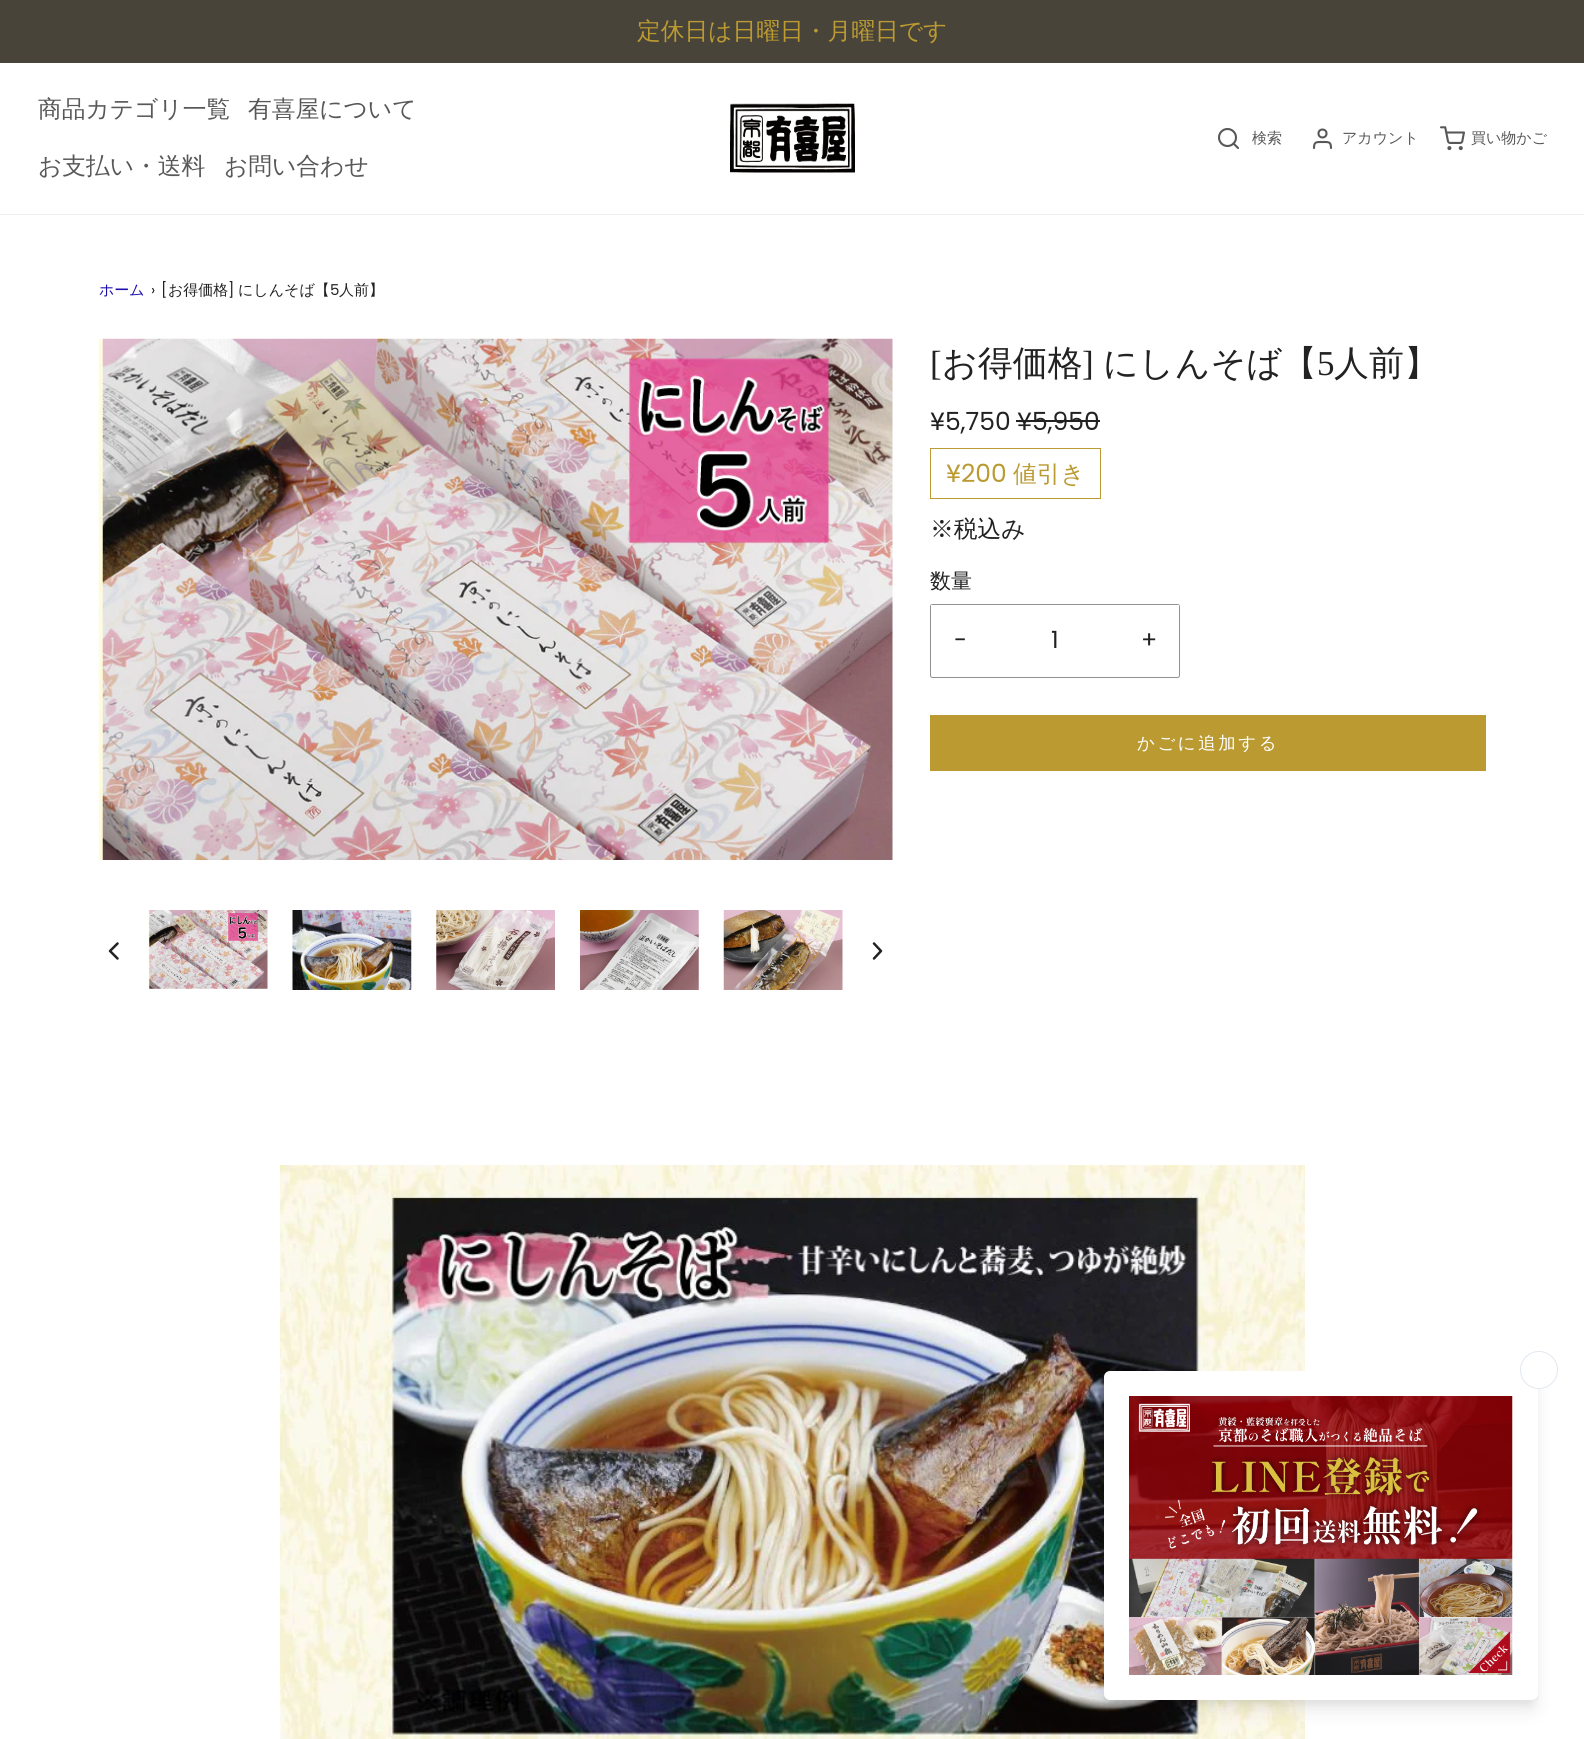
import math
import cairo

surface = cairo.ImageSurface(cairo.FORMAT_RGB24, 1584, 1739)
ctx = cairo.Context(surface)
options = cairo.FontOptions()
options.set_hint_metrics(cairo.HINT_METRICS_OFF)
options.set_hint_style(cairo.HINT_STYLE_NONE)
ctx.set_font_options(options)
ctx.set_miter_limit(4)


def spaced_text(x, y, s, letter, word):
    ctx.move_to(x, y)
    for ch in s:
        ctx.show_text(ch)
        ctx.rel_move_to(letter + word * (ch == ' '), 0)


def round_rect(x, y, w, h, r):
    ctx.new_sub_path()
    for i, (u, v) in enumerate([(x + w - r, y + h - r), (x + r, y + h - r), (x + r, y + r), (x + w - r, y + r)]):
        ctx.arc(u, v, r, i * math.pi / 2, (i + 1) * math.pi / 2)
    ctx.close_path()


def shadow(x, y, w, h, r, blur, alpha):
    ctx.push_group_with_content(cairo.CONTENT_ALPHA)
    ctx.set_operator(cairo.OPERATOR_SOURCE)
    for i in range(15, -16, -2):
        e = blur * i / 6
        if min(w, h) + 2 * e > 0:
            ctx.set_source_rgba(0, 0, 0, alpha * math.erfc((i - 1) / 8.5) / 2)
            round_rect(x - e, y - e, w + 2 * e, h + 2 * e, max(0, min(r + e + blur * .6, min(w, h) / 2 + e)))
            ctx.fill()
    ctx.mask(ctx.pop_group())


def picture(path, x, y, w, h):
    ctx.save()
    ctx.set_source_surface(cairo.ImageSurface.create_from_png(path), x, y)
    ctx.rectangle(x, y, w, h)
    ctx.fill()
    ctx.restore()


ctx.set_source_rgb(1, 1, 1)
ctx.paint()
ctx.set_source_rgb(0.286, 0.267, 0.227)
ctx.rectangle(0, 0, 1584, 63)
ctx.fill()
ctx.select_font_face("WenQuanYi Zen Hei Medium")
ctx.set_font_size(23.75)
ctx.set_source_rgb(0.729, 0.604, 0.192)
ctx.move_to(637, 39)
ctx.show_text("定休日は日曜日・月曜日です")
ctx.set_source_rgb(0.933, 0.933, 0.933)
ctx.rectangle(0, 214, 1584, 1)
ctx.fill()
ctx.set_source_rgb(0.345, 0.345, 0.345)
ctx.move_to(38, 117)
ctx.show_text("商品カテゴリ一覧")
ctx.move_to(248, 117)
ctx.show_text("有喜屋について")
ctx.move_to(38, 174)
ctx.show_text("お支払い・送料")
ctx.move_to(224, 174)
ctx.show_text("お問い合わせ")
picture("img1.png", 730, 103, 125, 70)
ctx.arc(1227.5, 137.5, 8.5, 0, 2 * math.pi)
ctx.set_line_width(2.1)
ctx.stroke()
ctx.set_font_size(15)
ctx.move_to(1252, 143)
ctx.show_text("検索")
ctx.new_path()
ctx.move_to(1238, 148)
ctx.line_to(1233.5, 143.5)
ctx.set_line_cap(cairo.LINE_CAP_ROUND)
ctx.set_line_join(cairo.LINE_JOIN_ROUND)
ctx.stroke()
ctx.new_path()
ctx.move_to(1331, 148)
ctx.curve_to(1331, 141.5, 1328.5, 142, 1322.5, 142)
ctx.curve_to(1316.5, 142, 1314, 141.5, 1314, 148)
ctx.stroke()
ctx.arc(1322.5, 133.5, 4, 0, 2 * math.pi)
ctx.set_line_cap(cairo.LINE_CAP_BUTT)
ctx.set_line_join(cairo.LINE_JOIN_MITER)
ctx.stroke()
ctx.move_to(1342, 143)
ctx.show_text("アカウント")
picture("img2.png", 1440, 126, 25, 25)
ctx.move_to(1471, 143)
ctx.show_text("買い物かご")
ctx.set_source_rgb(0.102, 0.051, 0.671)
ctx.move_to(99, 295)
ctx.show_text("ホーム")
ctx.select_font_face("Poppins")
ctx.set_source_rgb(0.133, 0.133, 0.133)
ctx.move_to(151, 295)
ctx.show_text("›")
ctx.move_to(161, 295)
ctx.show_text("[")
ctx.select_font_face("WenQuanYi Zen Hei Medium")
ctx.move_to(168, 295)
ctx.show_text("お得価格")
ctx.select_font_face("Poppins")
ctx.move_to(228, 295)
ctx.show_text("]")
ctx.select_font_face("WenQuanYi Zen Hei Medium")
ctx.move_to(238, 295)
ctx.show_text("にしんそば【")
ctx.select_font_face("Poppins")
ctx.move_to(330, 295)
ctx.show_text("5")
ctx.select_font_face("WenQuanYi Zen Hei Medium")
ctx.move_to(339, 295)
ctx.show_text("人前】")
picture("img3.png", 98, 338, 795, 522)
ctx.new_path()
ctx.move_to(117.5, 958.5)
ctx.line_to(110, 951)
ctx.line_to(117.5, 943.5)
ctx.set_line_width(2.5)
ctx.set_line_cap(cairo.LINE_CAP_ROUND)
ctx.set_line_join(cairo.LINE_JOIN_ROUND)
ctx.stroke()
picture("img4.png", 148, 910, 120, 79)
picture("img5.png", 292, 910, 120, 80)
picture("img6.png", 436, 910, 119, 80)
picture("img7.png", 580, 910, 119, 80)
picture("img8.png", 723, 910, 120, 80)
ctx.new_path()
ctx.move_to(874, 958.5)
ctx.line_to(881, 951)
ctx.line_to(874, 943.5)
ctx.stroke()
ctx.select_font_face("Liberation Serif")
ctx.set_font_size(35)
ctx.move_to(930, 375)
ctx.show_text("[")
ctx.select_font_face("WenQuanYi Zen Hei Medium")
ctx.move_to(942, 375)
ctx.show_text("お得価格")
ctx.select_font_face("Liberation Serif")
ctx.move_to(1082, 375)
ctx.show_text("]")
ctx.select_font_face("WenQuanYi Zen Hei Medium")
ctx.move_to(1103, 375)
ctx.show_text("にしんそば【")
ctx.select_font_face("Liberation Serif")
ctx.move_to(1317, 375)
ctx.show_text("5")
ctx.select_font_face("WenQuanYi Zen Hei Medium")
ctx.move_to(1334, 375)
ctx.show_text("人前】")
ctx.select_font_face("Poppins")
ctx.set_font_size(25)
ctx.move_to(930, 430)
ctx.show_text("¥5,750")
ctx.move_to(1017, 430)
ctx.show_text("¥5,950")
ctx.rectangle(1016, 420, 84, 2)
ctx.fill()
ctx.rectangle(930.5, 448.5, 170, 50)
ctx.set_source_rgb(0.729, 0.604, 0.192)
ctx.set_line_width(1)
ctx.set_line_cap(cairo.LINE_CAP_BUTT)
ctx.set_line_join(cairo.LINE_JOIN_MITER)
ctx.stroke()
ctx.move_to(946, 482)
ctx.show_text("¥200")
ctx.select_font_face("WenQuanYi Zen Hei Medium")
ctx.set_font_size(23.75)
ctx.move_to(1013, 482)
ctx.show_text("値引き")
ctx.set_source_rgb(0.133, 0.133, 0.133)
ctx.move_to(930, 537)
ctx.show_text("※税込み")
ctx.set_font_size(21)
ctx.move_to(930, 588)
ctx.show_text("数量")
round_rect(930.5, 604.5, 249, 73, 2)
ctx.set_source_rgb(0.569, 0.569, 0.569)
ctx.stroke()
ctx.set_source_rgb(1, 1, 1)
ctx.rectangle(931, 605, 1, 1)
ctx.fill()
ctx.select_font_face("Poppins")
ctx.set_font_size(23.75)
ctx.set_source_rgb(0.133, 0.133, 0.133)
ctx.move_to(954, 648)
ctx.show_text("-")
ctx.move_to(1051, 648)
ctx.show_text("1")
ctx.set_source_rgb(1, 1, 1)
ctx.rectangle(1178, 605, 1, 71)
ctx.fill()
ctx.set_source_rgb(0.133, 0.133, 0.133)
ctx.move_to(1141, 648)
ctx.show_text("+")
ctx.set_source_rgb(0.729, 0.604, 0.192)
ctx.rectangle(930, 715, 556, 56)
ctx.fill()
ctx.select_font_face("WenQuanYi Zen Hei Medium")
ctx.set_font_size(17.5)
ctx.set_source_rgb(1, 1, 1)
spaced_text(1137, 749, "かごに追加する", 2.5, 0)
picture("img9.png", 280, 1165, 1025, 574)
ctx.set_source_rgb(0, 0, 0)
shadow(1106, 1379, 429, 324, 4, 4, 0.05)
shadow(1108, 1388, 426, 321, 2.5, 9.5, 0.1)
ctx.save()
ctx.rectangle(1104, 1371, 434, 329)
ctx.clip()
shadow(1108, 1375, 426, 321, 2.5, 12.5, 0.12)
ctx.restore()
ctx.set_source_rgb(1, 1, 1)
round_rect(1104, 1371, 434, 329, 6)
ctx.fill()
picture("img10.png", 1129, 1396, 384, 279)
ctx.arc(1539, 1370, 18.5, 0, 2 * math.pi)
ctx.fill_preserve()
ctx.set_source_rgb(0.886, 0.91, 0.941)
ctx.stroke()
surface.write_to_png("page.png")
